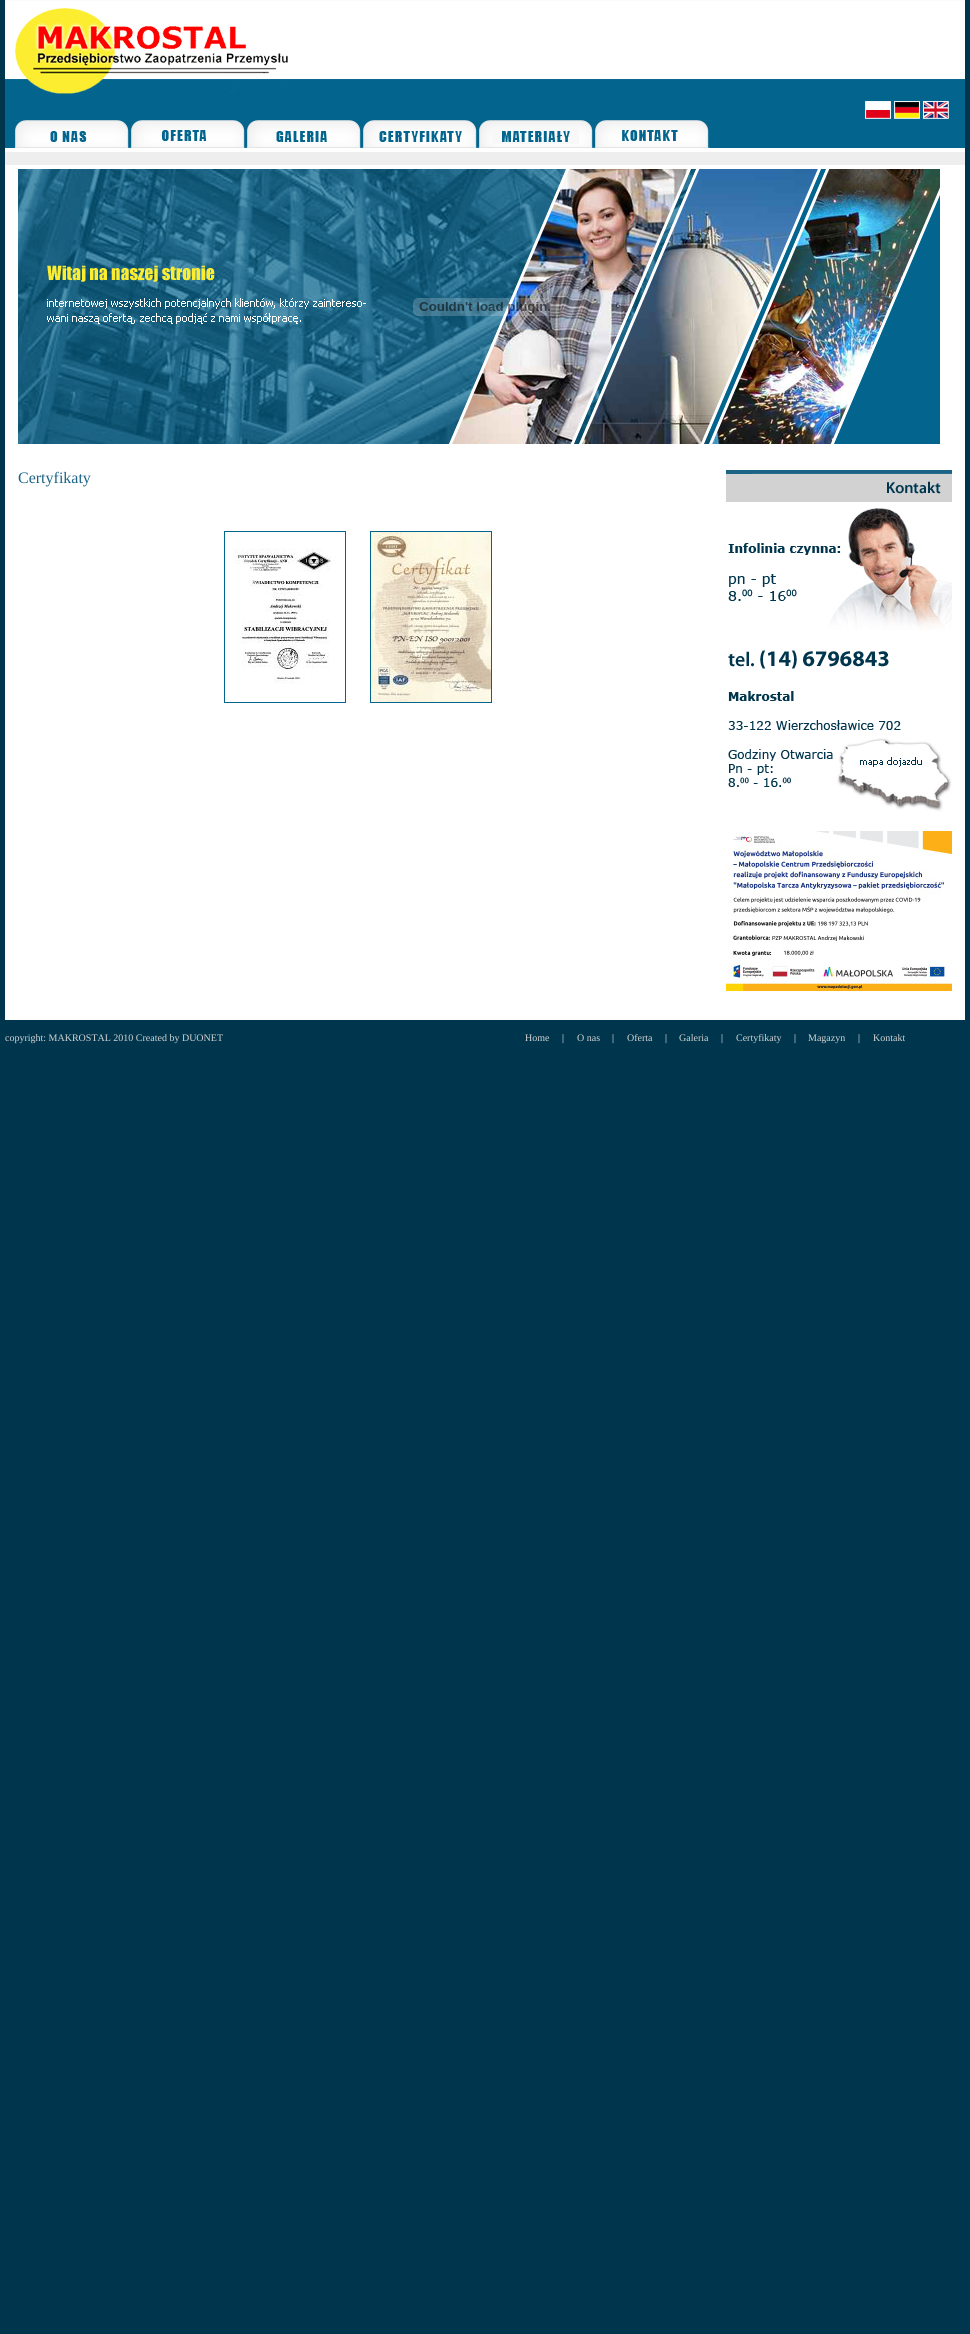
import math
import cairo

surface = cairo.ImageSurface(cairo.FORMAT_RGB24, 970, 2334)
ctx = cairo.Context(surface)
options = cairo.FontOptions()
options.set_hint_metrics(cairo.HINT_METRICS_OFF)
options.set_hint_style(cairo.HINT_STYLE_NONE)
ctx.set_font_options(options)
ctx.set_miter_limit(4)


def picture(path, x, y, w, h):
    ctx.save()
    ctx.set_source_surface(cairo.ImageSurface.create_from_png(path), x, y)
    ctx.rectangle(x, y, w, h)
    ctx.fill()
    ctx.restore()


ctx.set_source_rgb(0, 0.212, 0.302)
ctx.paint()
ctx.set_source_rgb(1, 1, 1)
ctx.rectangle(5, 148, 960, 872)
ctx.fill()
picture("img1.png", 5, 0, 960, 120)
picture("img2.png", 15, 8, 273, 86)
picture("img3.png", 865, 101, 26, 18)
picture("img4.png", 894, 101, 26, 18)
picture("img5.png", 923, 101, 26, 18)
ctx.set_source_rgb(0.012, 0.396, 0.557)
ctx.rectangle(5, 120, 960, 28)
ctx.fill()
picture("img6.png", 15, 120, 114, 28)
picture("img7.png", 129, 120, 117, 28)
picture("img8.png", 246, 120, 116, 28)
picture("img9.png", 362, 120, 116, 28)
picture("img10.png", 478, 120, 116, 28)
picture("img11.png", 594, 120, 116, 28)
ctx.set_source_rgb(0.933, 0.933, 0.933)
ctx.rectangle(5, 152, 960, 13)
ctx.fill()
picture("img12.png", 18, 169, 922, 275)
picture("img13.png", 413, 298, 144, 18)
ctx.select_font_face("Liberation Serif")
ctx.set_font_size(16)
ctx.set_source_rgb(0.11, 0.392, 0.522)
ctx.move_to(18, 483)
ctx.show_text("Certyfikaty")
ctx.rectangle(224.5, 531.5, 121, 171)
ctx.set_source_rgb(0.012, 0.392, 0.557)
ctx.set_line_width(1)
ctx.stroke()
ctx.rectangle(370.5, 531.5, 121, 171)
ctx.stroke()
picture("img14.png", 233, 548, 104, 136)
picture("img15.png", 371, 532, 120, 170)
picture("img16.png", 726, 470, 226, 342)
picture("img17.png", 726, 831, 226, 160)
ctx.set_font_size(10)
ctx.set_source_rgb(0.827, 0.827, 0.827)
ctx.move_to(5, 1041)
ctx.show_text("copyright: MAKROSTAL 2010 Created by DUONET")
ctx.move_to(525, 1041)
ctx.show_text("Home")
ctx.set_source_rgb(1, 1, 1)
ctx.move_to(562, 1041)
ctx.show_text("|")
ctx.set_source_rgb(0.827, 0.827, 0.827)
ctx.move_to(577, 1041)
ctx.show_text("O nas")
ctx.set_source_rgb(1, 1, 1)
ctx.move_to(612, 1041)
ctx.show_text("|")
ctx.set_source_rgb(0.827, 0.827, 0.827)
ctx.move_to(627, 1041)
ctx.show_text("Oferta")
ctx.set_source_rgb(1, 1, 1)
ctx.move_to(665, 1041)
ctx.show_text("|")
ctx.set_source_rgb(0.827, 0.827, 0.827)
ctx.move_to(679, 1041)
ctx.show_text("Galeria")
ctx.set_source_rgb(1, 1, 1)
ctx.move_to(721, 1041)
ctx.show_text("|")
ctx.set_source_rgb(0.827, 0.827, 0.827)
ctx.move_to(736, 1041)
ctx.show_text("Certyfikaty")
ctx.set_source_rgb(1, 1, 1)
ctx.move_to(794, 1041)
ctx.show_text("|")
ctx.set_source_rgb(0.827, 0.827, 0.827)
ctx.move_to(808, 1041)
ctx.show_text("Magazyn")
ctx.set_source_rgb(1, 1, 1)
ctx.move_to(858, 1041)
ctx.show_text("|")
ctx.set_source_rgb(0.827, 0.827, 0.827)
ctx.move_to(873, 1041)
ctx.show_text("Kontakt")
surface.write_to_png("page.png")
